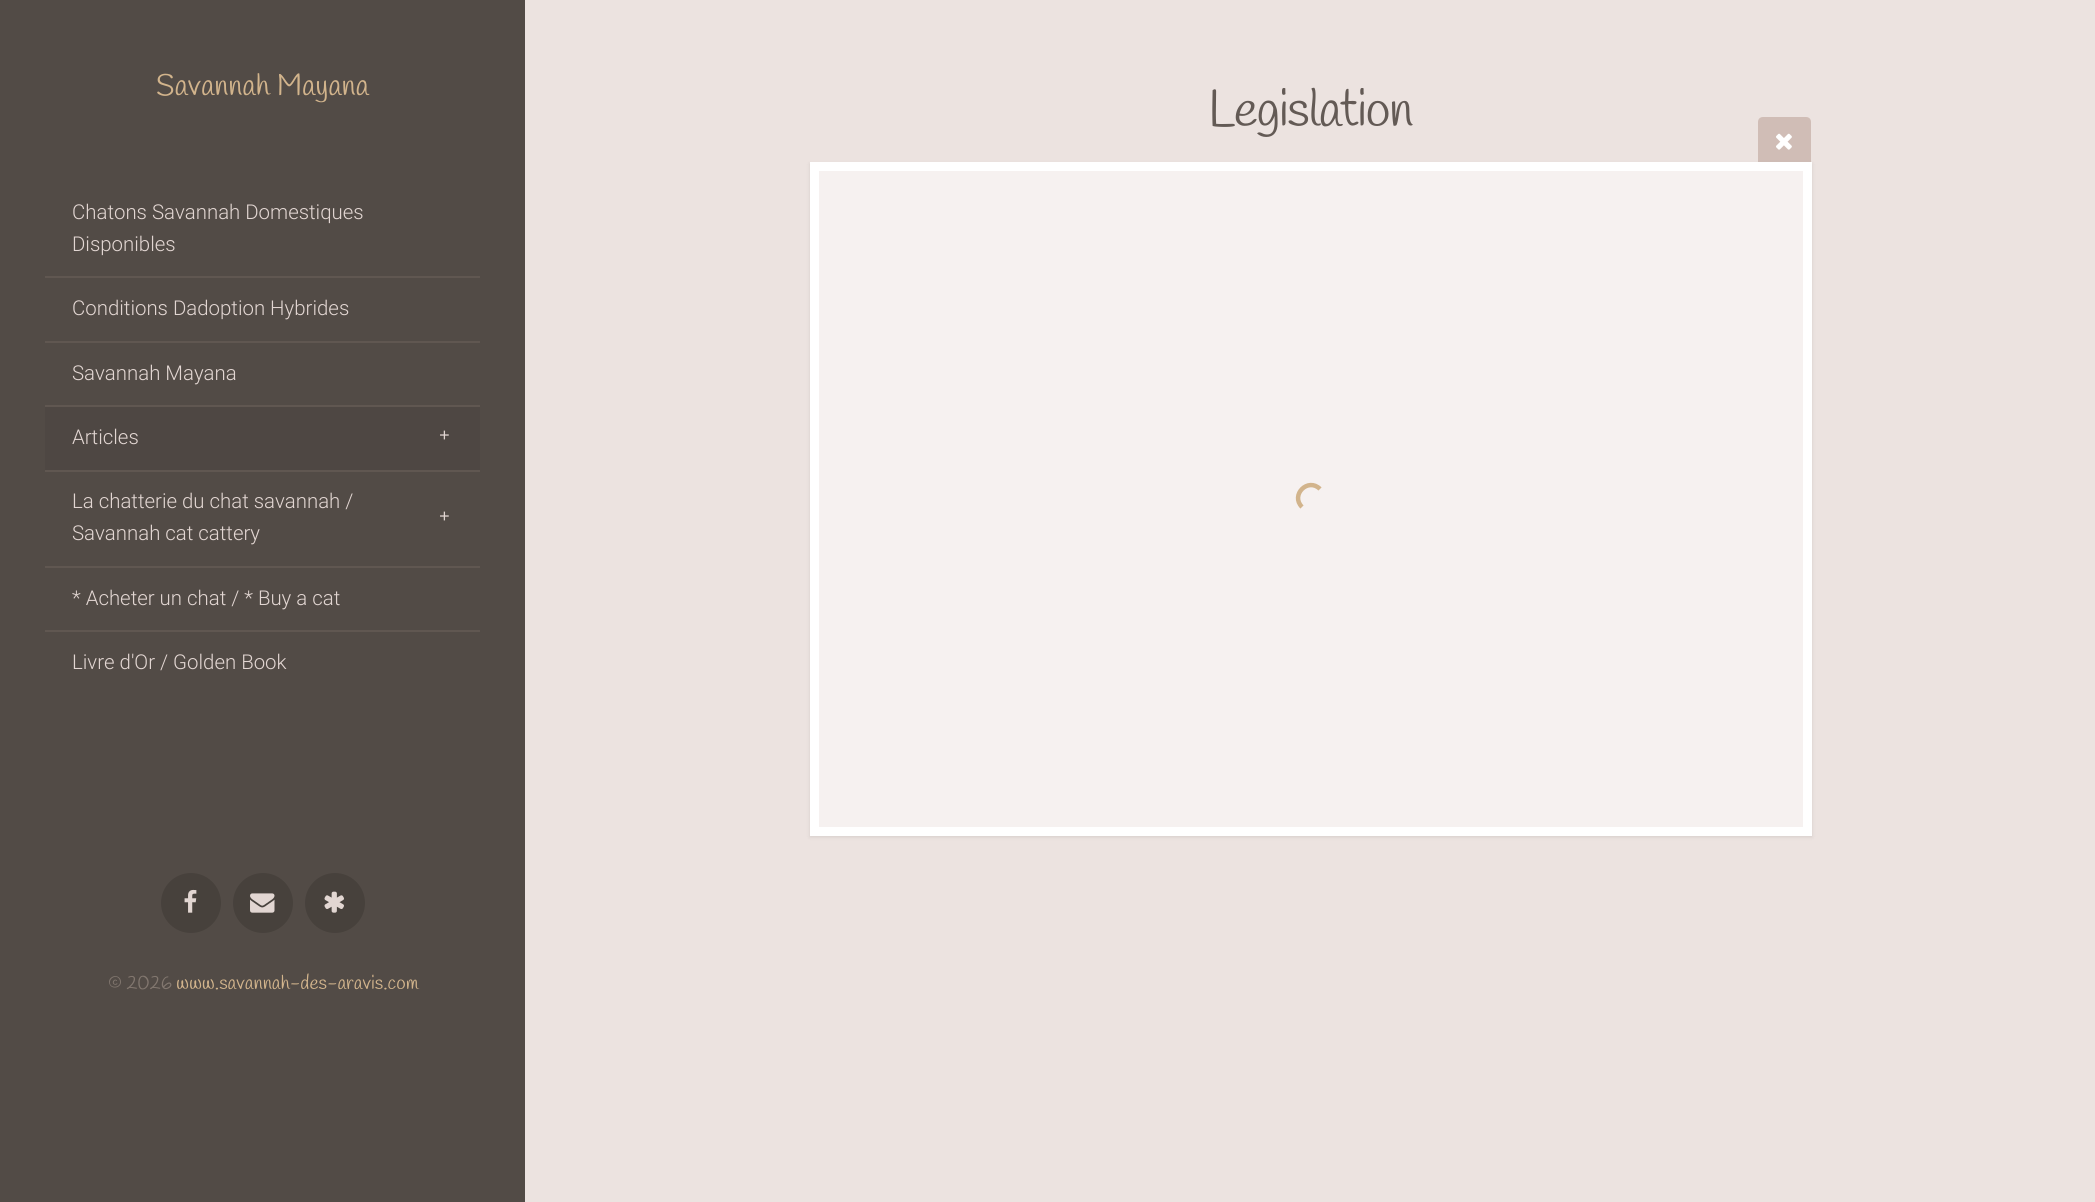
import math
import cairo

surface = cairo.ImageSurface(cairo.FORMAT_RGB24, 2095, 1202)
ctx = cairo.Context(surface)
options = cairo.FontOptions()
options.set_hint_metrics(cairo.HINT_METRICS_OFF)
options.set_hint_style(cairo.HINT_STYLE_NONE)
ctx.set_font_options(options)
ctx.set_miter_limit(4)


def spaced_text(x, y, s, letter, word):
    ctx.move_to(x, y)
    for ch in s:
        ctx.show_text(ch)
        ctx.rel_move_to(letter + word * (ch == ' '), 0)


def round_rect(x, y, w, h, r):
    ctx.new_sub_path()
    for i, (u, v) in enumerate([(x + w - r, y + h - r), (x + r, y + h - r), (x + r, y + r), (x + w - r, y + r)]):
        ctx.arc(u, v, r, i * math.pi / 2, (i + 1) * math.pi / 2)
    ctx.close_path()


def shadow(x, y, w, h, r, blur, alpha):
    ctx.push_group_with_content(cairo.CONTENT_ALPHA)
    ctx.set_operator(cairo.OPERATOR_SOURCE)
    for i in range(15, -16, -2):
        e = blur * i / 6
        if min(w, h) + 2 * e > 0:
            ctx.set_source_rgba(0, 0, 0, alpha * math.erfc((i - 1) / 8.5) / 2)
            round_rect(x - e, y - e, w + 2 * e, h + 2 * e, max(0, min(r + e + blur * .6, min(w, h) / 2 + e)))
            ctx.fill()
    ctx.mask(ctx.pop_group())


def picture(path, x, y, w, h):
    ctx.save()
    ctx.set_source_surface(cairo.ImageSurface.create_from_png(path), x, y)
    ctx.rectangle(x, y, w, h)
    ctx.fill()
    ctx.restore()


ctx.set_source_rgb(0.922, 0.89, 0.878)
ctx.paint()
ctx.set_source_rgb(0.322, 0.294, 0.275)
ctx.rectangle(0, 0, 525, 1202)
ctx.fill()
ctx.select_font_face("Handlee")
ctx.set_font_size(29.5)
ctx.set_source_rgb(0.824, 0.706, 0.549)
ctx.move_to(156, 95)
ctx.show_text("Savannah Mayana")
ctx.set_source_rgb(0.376, 0.341, 0.318)
ctx.rectangle(45, 276, 435, 2)
ctx.fill()
ctx.select_font_face("Roboto Light")
ctx.set_font_size(20.4)
ctx.set_source_rgb(0.886, 0.839, 0.824)
ctx.move_to(72, 219)
ctx.show_text("Chatons Savannah Domestiques")
ctx.move_to(72, 251)
ctx.show_text("Disponibles")
ctx.set_source_rgb(0.376, 0.341, 0.318)
ctx.rectangle(45, 341, 435, 2)
ctx.fill()
ctx.set_source_rgb(0.886, 0.839, 0.824)
ctx.move_to(72, 315)
ctx.show_text("Conditions Dadoption Hybrides")
ctx.set_source_rgb(0.376, 0.341, 0.318)
ctx.rectangle(45, 405, 435, 2)
ctx.fill()
ctx.set_source_rgb(0.886, 0.839, 0.824)
ctx.move_to(72, 380)
ctx.show_text("Savannah Mayana")
ctx.set_source_rgb(0.376, 0.341, 0.318)
ctx.rectangle(45, 470, 435, 2)
ctx.fill()
ctx.set_source_rgb(0.306, 0.278, 0.263)
ctx.rectangle(45, 407, 435, 63)
ctx.fill()
ctx.set_source_rgb(0.886, 0.839, 0.824)
ctx.move_to(72, 444)
ctx.show_text("Articles")
ctx.select_font_face("Liberation Mono")
ctx.set_font_size(18)
ctx.move_to(439, 441)
ctx.show_text("+")
ctx.set_source_rgb(0.376, 0.341, 0.318)
ctx.rectangle(45, 566, 435, 2)
ctx.fill()
ctx.select_font_face("Roboto Light")
ctx.set_font_size(20.4)
ctx.set_source_rgb(0.886, 0.839, 0.824)
ctx.move_to(72, 508)
ctx.show_text("La chatterie du chat savannah /")
ctx.select_font_face("Liberation Mono")
ctx.set_font_size(18)
ctx.move_to(439, 522)
ctx.show_text("+")
ctx.select_font_face("Roboto Light")
ctx.set_font_size(20.4)
ctx.move_to(72, 540)
ctx.show_text("Savannah cat cattery")
ctx.set_source_rgb(0.376, 0.341, 0.318)
ctx.rectangle(45, 630, 435, 2)
ctx.fill()
ctx.set_source_rgb(0.886, 0.839, 0.824)
ctx.move_to(72, 605)
ctx.show_text("* Acheter un chat / * Buy a cat")
ctx.move_to(72, 669)
ctx.show_text("Livre d'Or / Golden Book")
ctx.set_source_rgb(0.278, 0.255, 0.235)
ctx.new_path()
ctx.arc(191, 903, 30, 0, 2 * math.pi)
ctx.fill()
picture("img1.png", 184, 889, 13, 24)
ctx.arc(263, 903, 30, 0, 2 * math.pi)
ctx.fill()
picture("img2.png", 250, 893, 25, 20)
ctx.arc(335, 903, 30, 0, 2 * math.pi)
ctx.fill()
picture("img3.png", 324, 891, 20, 22)
ctx.select_font_face("Handlee")
ctx.set_font_size(19.25)
ctx.set_source_rgb(0.51, 0.467, 0.435)
ctx.move_to(108, 989)
ctx.show_text("© 2026")
ctx.set_source_rgb(0.824, 0.706, 0.549)
ctx.move_to(176, 989)
ctx.show_text("www.savannah-des-aravis.com")
ctx.set_font_size(51)
ctx.set_source_rgb(0.388, 0.353, 0.333)
spaced_text(1208, 126, "Legislation", -1.5, 0)
ctx.set_source_rgb(0.816, 0.741, 0.714)
ctx.new_path()
ctx.move_to(1763, 117)
ctx.line_to(1806, 117)
ctx.curve_to(1809, 117, 1811, 119, 1811, 122)
ctx.line_to(1811, 162)
ctx.line_to(1758, 162)
ctx.line_to(1758, 122)
ctx.curve_to(1758, 119, 1760, 117, 1763, 117)
ctx.close_path()
ctx.fill()
picture("img4.png", 1776, 133, 16, 17)
ctx.set_source_rgb(0, 0, 0)
shadow(810, 164, 1002, 673, 0, 2, 0.1)
ctx.set_source_rgb(1, 1, 1)
ctx.rectangle(810, 162, 1002, 674)
ctx.fill()
ctx.set_source_rgb(0.961, 0.945, 0.941)
ctx.rectangle(819, 171, 984, 656)
ctx.fill()
ctx.new_path()
ctx.move_to(1302, 507)
ctx.curve_to(1290, 495, 1308, 477, 1320, 489)
ctx.set_source_rgb(0.824, 0.706, 0.549)
ctx.set_line_width(4.5)
ctx.stroke()
surface.write_to_png("page.png")
